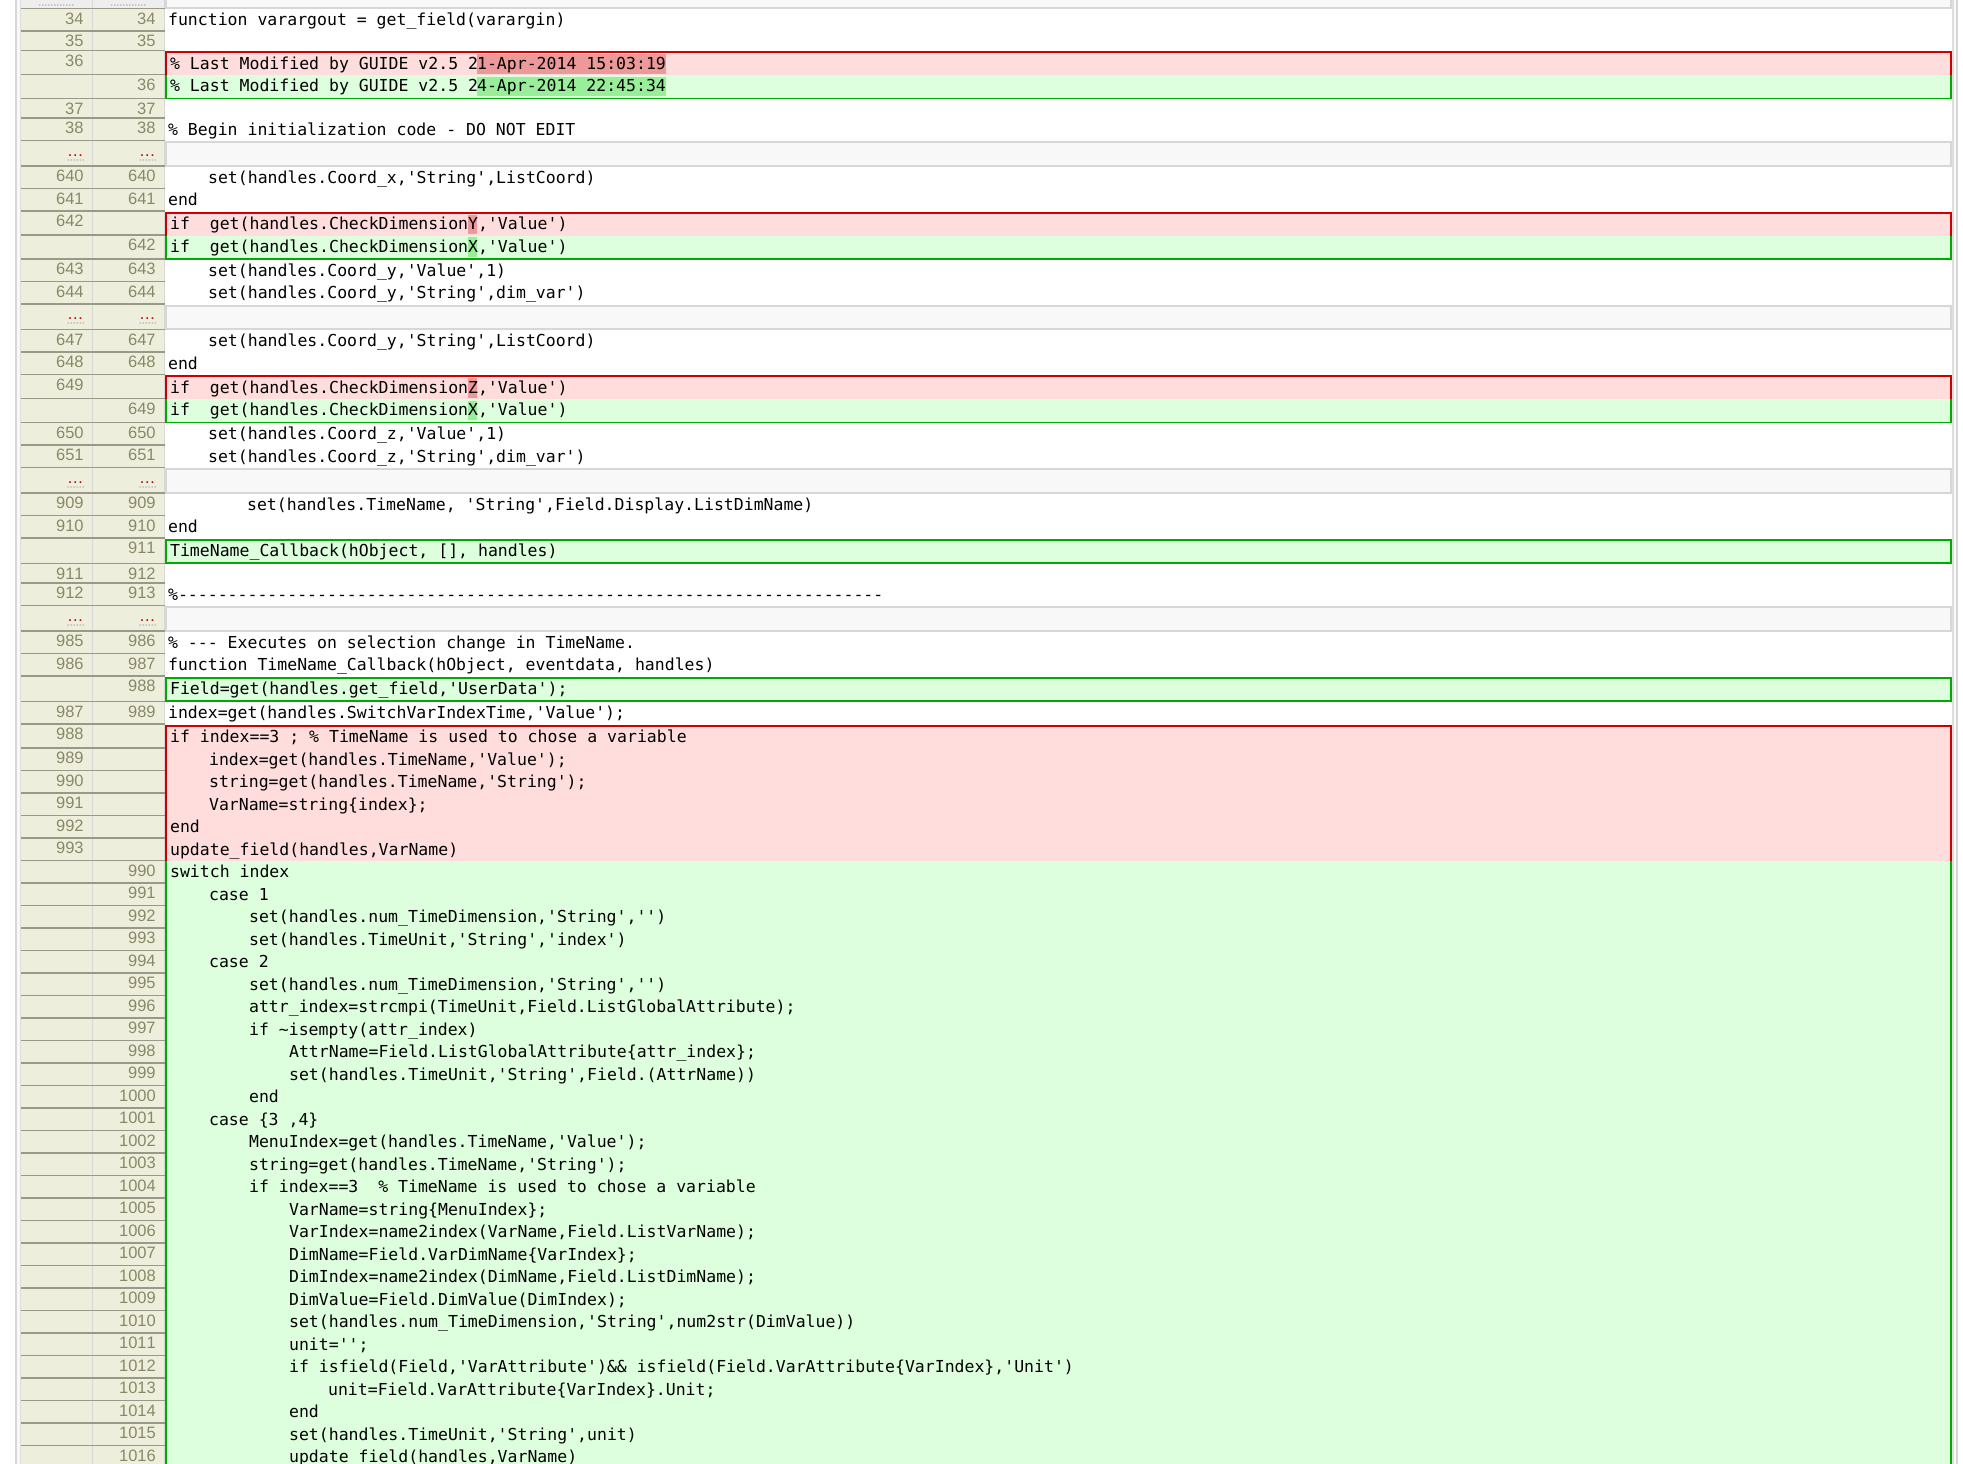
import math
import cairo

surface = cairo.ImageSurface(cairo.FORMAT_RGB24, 1963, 1464)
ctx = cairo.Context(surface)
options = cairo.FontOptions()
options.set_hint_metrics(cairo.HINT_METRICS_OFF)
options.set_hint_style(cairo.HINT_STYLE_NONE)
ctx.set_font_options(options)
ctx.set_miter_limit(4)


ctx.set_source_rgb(1, 1, 1)
ctx.paint()
ctx.set_source_rgb(0.969, 0.969, 0.969)
ctx.rectangle(16, -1, 1941, 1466)
ctx.fill_preserve()
ctx.set_source_rgb(0.843, 0.843, 0.843)
ctx.stroke()
ctx.set_source_rgb(0.867, 0.867, 0.867)
ctx.rectangle(1952, 0, 2, 1464)
ctx.fill()
ctx.rectangle(20, 0, 1, 1464)
ctx.fill()
ctx.set_source_rgb(0.933, 0.933, 0.933)
ctx.rectangle(21, 0, 71, 8)
ctx.fill()
ctx.set_source_rgb(0.843, 0.843, 0.843)
ctx.rectangle(92, 0, 1, 1131)
ctx.fill()
ctx.set_source_rgb(0.6, 0.6, 0.533)
ctx.rectangle(21, 8, 72, 1)
ctx.fill()
ctx.new_path()
ctx.move_to(39, 5)
ctx.line_to(73.5, 5)
ctx.set_source_rgb(0.733, 0.733, 0.733)
ctx.set_line_width(1.5)
ctx.set_dash([1.5, 1.5])
ctx.stroke()
ctx.set_source_rgb(0.933, 0.933, 0.933)
ctx.rectangle(93, 0, 71, 8)
ctx.fill()
ctx.set_source_rgb(0.843, 0.843, 0.843)
ctx.rectangle(164, 0, 1, 1131)
ctx.fill()
ctx.set_source_rgb(0.6, 0.6, 0.533)
ctx.rectangle(93, 8, 72, 1)
ctx.fill()
ctx.new_path()
ctx.move_to(111, 5)
ctx.line_to(145.5, 5)
ctx.set_source_rgb(0.733, 0.733, 0.733)
ctx.stroke()
ctx.rectangle(166, -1, 1785, 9)
ctx.set_source_rgb(0.843, 0.843, 0.843)
ctx.set_line_width(2)
ctx.set_dash([])
ctx.stroke()
ctx.set_source_rgb(0.933, 0.933, 0.867)
ctx.rectangle(21, 9, 71, 21)
ctx.fill()
ctx.set_source_rgb(0.6, 0.6, 0.533)
ctx.rectangle(21, 30, 144, 2)
ctx.fill()
ctx.select_font_face("Liberation Sans")
ctx.set_font_size(16.5)
ctx.set_source_rgb(0.533, 0.533, 0.4)
ctx.move_to(65, 24)
ctx.show_text("34")
ctx.set_source_rgb(0.933, 0.933, 0.867)
ctx.rectangle(93, 9, 71, 21)
ctx.fill()
ctx.set_source_rgb(0.533, 0.533, 0.4)
ctx.move_to(137, 24)
ctx.show_text("34")
ctx.set_source_rgb(1, 1, 1)
ctx.rectangle(165, 9, 1787, 42)
ctx.fill()
ctx.select_font_face("DejaVu Sans Mono")
ctx.set_source_rgb(0, 0, 0)
ctx.move_to(168, 25)
ctx.show_text("function varargout = get_field(varargin)")
ctx.set_source_rgb(0.933, 0.933, 0.867)
ctx.rectangle(21, 32, 71, 18)
ctx.fill()
ctx.set_source_rgb(0.6, 0.6, 0.533)
ctx.rectangle(21, 50, 144, 1)
ctx.fill()
ctx.select_font_face("Liberation Sans")
ctx.set_source_rgb(0.533, 0.533, 0.4)
ctx.move_to(65, 46)
ctx.show_text("35")
ctx.set_source_rgb(0.933, 0.933, 0.867)
ctx.rectangle(93, 32, 71, 18)
ctx.fill()
ctx.set_source_rgb(0.533, 0.533, 0.4)
ctx.move_to(137, 46)
ctx.show_text("35")
ctx.set_source_rgb(0.933, 0.933, 0.867)
ctx.rectangle(21, 51, 71, 23)
ctx.fill()
ctx.set_source_rgb(0.6, 0.6, 0.533)
ctx.rectangle(21, 74, 144, 1)
ctx.fill()
ctx.set_source_rgb(0.533, 0.533, 0.4)
ctx.move_to(65, 66)
ctx.show_text("36")
ctx.set_source_rgb(0.933, 0.933, 0.867)
ctx.rectangle(93, 51, 71, 23)
ctx.fill()
ctx.set_source_rgb(1, 0.867, 0.867)
ctx.rectangle(167, 53, 1783, 22)
ctx.fill()
ctx.set_source_rgb(0.8, 0, 0)
ctx.rectangle(165, 51, 1787, 2)
ctx.fill()
ctx.rectangle(1950, 51, 2, 24)
ctx.fill()
ctx.rectangle(165, 51, 2, 24)
ctx.fill()
ctx.select_font_face("DejaVu Sans Mono")
ctx.set_source_rgb(0, 0, 0)
ctx.move_to(170, 69)
ctx.show_text("% Last Modified by GUIDE v2.5 2")
ctx.set_source_rgb(0.933, 0.6, 0.6)
ctx.rectangle(477, 54, 189, 20)
ctx.fill()
ctx.set_source_rgb(0, 0, 0)
ctx.move_to(477, 69)
ctx.show_text("1-Apr-2014 15:03:19")
ctx.set_source_rgb(0.933, 0.933, 0.867)
ctx.rectangle(21, 75, 71, 23)
ctx.fill()
ctx.set_source_rgb(0.6, 0.6, 0.533)
ctx.rectangle(21, 98, 144, 1)
ctx.fill()
ctx.set_source_rgb(0.933, 0.933, 0.867)
ctx.rectangle(93, 75, 71, 23)
ctx.fill()
ctx.select_font_face("Liberation Sans")
ctx.set_source_rgb(0.533, 0.533, 0.4)
ctx.move_to(137, 90)
ctx.show_text("36")
ctx.set_source_rgb(0.867, 1, 0.867)
ctx.rectangle(167, 75, 1783, 23)
ctx.fill()
ctx.set_source_rgb(0, 0.667, 0)
ctx.rectangle(1950, 75, 2, 24)
ctx.fill()
ctx.rectangle(165, 98, 1787, 1)
ctx.fill()
ctx.rectangle(165, 75, 2, 24)
ctx.fill()
ctx.select_font_face("DejaVu Sans Mono")
ctx.set_source_rgb(0, 0, 0)
ctx.move_to(170, 91)
ctx.show_text("% Last Modified by GUIDE v2.5 2")
ctx.set_source_rgb(0.6, 0.933, 0.6)
ctx.rectangle(477, 77, 189, 19)
ctx.fill()
ctx.set_source_rgb(0, 0, 0)
ctx.move_to(477, 91)
ctx.show_text("4-Apr-2014 22:45:34")
ctx.set_source_rgb(0.933, 0.933, 0.867)
ctx.rectangle(21, 99, 71, 18)
ctx.fill()
ctx.set_source_rgb(0.6, 0.6, 0.533)
ctx.rectangle(21, 117, 144, 2)
ctx.fill()
ctx.select_font_face("Liberation Sans")
ctx.set_source_rgb(0.533, 0.533, 0.4)
ctx.move_to(65, 114)
ctx.show_text("37")
ctx.set_source_rgb(0.933, 0.933, 0.867)
ctx.rectangle(93, 99, 71, 18)
ctx.fill()
ctx.set_source_rgb(0.533, 0.533, 0.4)
ctx.move_to(137, 114)
ctx.show_text("37")
ctx.set_source_rgb(1, 1, 1)
ctx.rectangle(165, 99, 1787, 42)
ctx.fill()
ctx.set_source_rgb(0.933, 0.933, 0.867)
ctx.rectangle(21, 119, 71, 21)
ctx.fill()
ctx.set_source_rgb(0.6, 0.6, 0.533)
ctx.rectangle(21, 140, 144, 1)
ctx.fill()
ctx.set_source_rgb(0.533, 0.533, 0.4)
ctx.move_to(65, 133)
ctx.show_text("38")
ctx.set_source_rgb(0.933, 0.933, 0.867)
ctx.rectangle(93, 119, 71, 21)
ctx.fill()
ctx.set_source_rgb(0.533, 0.533, 0.4)
ctx.move_to(137, 133)
ctx.show_text("38")
ctx.select_font_face("DejaVu Sans Mono")
ctx.set_source_rgb(0, 0, 0)
ctx.move_to(168, 135)
ctx.show_text("% Begin initialization code - DO NOT EDIT")
ctx.set_source_rgb(0.933, 0.933, 0.867)
ctx.rectangle(21, 141, 71, 24)
ctx.fill()
ctx.set_source_rgb(0.6, 0.6, 0.533)
ctx.rectangle(21, 165, 144, 2)
ctx.fill()
ctx.select_font_face("Liberation Sans")
ctx.set_source_rgb(0.733, 0, 0)
ctx.move_to(67, 156)
ctx.show_text("…")
ctx.new_path()
ctx.move_to(67.5, 160)
ctx.line_to(84, 160)
ctx.set_source_rgb(0.733, 0.733, 0.733)
ctx.set_line_width(1.5)
ctx.set_dash([1.5, 1.5])
ctx.stroke()
ctx.set_source_rgb(0.933, 0.933, 0.867)
ctx.rectangle(93, 141, 71, 24)
ctx.fill()
ctx.set_source_rgb(0.733, 0, 0)
ctx.move_to(139, 156)
ctx.show_text("…")
ctx.new_path()
ctx.move_to(139.5, 160)
ctx.line_to(156, 160)
ctx.set_source_rgb(0.733, 0.733, 0.733)
ctx.stroke()
ctx.rectangle(166, 142, 1785, 24)
ctx.set_source_rgb(0.843, 0.843, 0.843)
ctx.set_line_width(2)
ctx.set_dash([])
ctx.stroke()
ctx.set_source_rgb(0.933, 0.933, 0.867)
ctx.rectangle(21, 167, 71, 21)
ctx.fill()
ctx.set_source_rgb(0.6, 0.6, 0.533)
ctx.rectangle(21, 188, 144, 1)
ctx.fill()
ctx.set_source_rgb(0.533, 0.533, 0.4)
ctx.move_to(56, 181)
ctx.show_text("640")
ctx.set_source_rgb(0.933, 0.933, 0.867)
ctx.rectangle(93, 167, 71, 21)
ctx.fill()
ctx.set_source_rgb(0.533, 0.533, 0.4)
ctx.move_to(128, 181)
ctx.show_text("640")
ctx.set_source_rgb(1, 1, 1)
ctx.rectangle(165, 167, 1787, 45)
ctx.fill()
ctx.select_font_face("DejaVu Sans Mono")
ctx.set_source_rgb(0, 0, 0)
ctx.move_to(208, 183)
ctx.show_text("set(handles.Coord_x,'String',ListCoord)")
ctx.set_source_rgb(0.933, 0.933, 0.867)
ctx.rectangle(21, 189, 71, 21)
ctx.fill()
ctx.set_source_rgb(0.6, 0.6, 0.533)
ctx.rectangle(21, 210, 144, 2)
ctx.fill()
ctx.select_font_face("Liberation Sans")
ctx.set_source_rgb(0.533, 0.533, 0.4)
ctx.move_to(56, 204)
ctx.show_text("641")
ctx.set_source_rgb(0.933, 0.933, 0.867)
ctx.rectangle(93, 189, 71, 21)
ctx.fill()
ctx.set_source_rgb(0.533, 0.533, 0.4)
ctx.move_to(128, 204)
ctx.show_text("641")
ctx.select_font_face("DejaVu Sans Mono")
ctx.set_source_rgb(0, 0, 0)
ctx.move_to(168, 205)
ctx.show_text("end")
ctx.set_source_rgb(0.933, 0.933, 0.867)
ctx.rectangle(21, 212, 71, 22)
ctx.fill()
ctx.set_source_rgb(0.6, 0.6, 0.533)
ctx.rectangle(21, 234, 144, 2)
ctx.fill()
ctx.select_font_face("Liberation Sans")
ctx.set_source_rgb(0.533, 0.533, 0.4)
ctx.move_to(56, 226)
ctx.show_text("642")
ctx.set_source_rgb(0.933, 0.933, 0.867)
ctx.rectangle(93, 212, 71, 22)
ctx.fill()
ctx.set_source_rgb(1, 0.867, 0.867)
ctx.rectangle(167, 214, 1783, 22)
ctx.fill()
ctx.set_source_rgb(0.8, 0, 0)
ctx.rectangle(165, 212, 1787, 2)
ctx.fill()
ctx.rectangle(1950, 212, 2, 24)
ctx.fill()
ctx.rectangle(165, 212, 2, 24)
ctx.fill()
ctx.select_font_face("DejaVu Sans Mono")
ctx.set_source_rgb(0, 0, 0)
ctx.move_to(170, 229)
ctx.show_text("if  get(handles.CheckDimension")
ctx.set_source_rgb(0.933, 0.6, 0.6)
ctx.rectangle(468, 215, 9, 19)
ctx.fill()
ctx.set_source_rgb(0, 0, 0)
ctx.move_to(468, 229)
ctx.show_text("Y,'Value')")
ctx.set_source_rgb(0.933, 0.933, 0.867)
ctx.rectangle(21, 236, 71, 22)
ctx.fill()
ctx.set_source_rgb(0.6, 0.6, 0.533)
ctx.rectangle(21, 258, 144, 2)
ctx.fill()
ctx.set_source_rgb(0.933, 0.933, 0.867)
ctx.rectangle(93, 236, 71, 22)
ctx.fill()
ctx.select_font_face("Liberation Sans")
ctx.set_source_rgb(0.533, 0.533, 0.4)
ctx.move_to(128, 250)
ctx.show_text("642")
ctx.set_source_rgb(0.867, 1, 0.867)
ctx.rectangle(167, 236, 1783, 22)
ctx.fill()
ctx.set_source_rgb(0, 0.667, 0)
ctx.rectangle(1950, 236, 2, 24)
ctx.fill()
ctx.rectangle(165, 258, 1787, 2)
ctx.fill()
ctx.rectangle(165, 236, 2, 24)
ctx.fill()
ctx.select_font_face("DejaVu Sans Mono")
ctx.set_source_rgb(0, 0, 0)
ctx.move_to(170, 252)
ctx.show_text("if  get(handles.CheckDimension")
ctx.set_source_rgb(0.6, 0.933, 0.6)
ctx.rectangle(468, 237, 9, 20)
ctx.fill()
ctx.set_source_rgb(0, 0, 0)
ctx.move_to(468, 252)
ctx.show_text("X,'Value')")
ctx.set_source_rgb(0.933, 0.933, 0.867)
ctx.rectangle(21, 260, 71, 21)
ctx.fill()
ctx.set_source_rgb(0.6, 0.6, 0.533)
ctx.rectangle(21, 281, 144, 1)
ctx.fill()
ctx.select_font_face("Liberation Sans")
ctx.set_source_rgb(0.533, 0.533, 0.4)
ctx.move_to(56, 274)
ctx.show_text("643")
ctx.set_source_rgb(0.933, 0.933, 0.867)
ctx.rectangle(93, 260, 71, 21)
ctx.fill()
ctx.set_source_rgb(0.533, 0.533, 0.4)
ctx.move_to(128, 274)
ctx.show_text("643")
ctx.set_source_rgb(1, 1, 1)
ctx.rectangle(165, 260, 1787, 45)
ctx.fill()
ctx.select_font_face("DejaVu Sans Mono")
ctx.set_source_rgb(0, 0, 0)
ctx.move_to(208, 276)
ctx.show_text("set(handles.Coord_y,'Value',1)")
ctx.set_source_rgb(0.933, 0.933, 0.867)
ctx.rectangle(21, 282, 71, 21)
ctx.fill()
ctx.set_source_rgb(0.6, 0.6, 0.533)
ctx.rectangle(21, 303, 144, 2)
ctx.fill()
ctx.select_font_face("Liberation Sans")
ctx.set_source_rgb(0.533, 0.533, 0.4)
ctx.move_to(56, 297)
ctx.show_text("644")
ctx.set_source_rgb(0.933, 0.933, 0.867)
ctx.rectangle(93, 282, 71, 21)
ctx.fill()
ctx.set_source_rgb(0.533, 0.533, 0.4)
ctx.move_to(128, 297)
ctx.show_text("644")
ctx.select_font_face("DejaVu Sans Mono")
ctx.set_source_rgb(0, 0, 0)
ctx.move_to(208, 298)
ctx.show_text("set(handles.Coord_y,'String',dim_var')")
ctx.set_source_rgb(0.933, 0.933, 0.867)
ctx.rectangle(21, 305, 71, 24)
ctx.fill()
ctx.set_source_rgb(0.6, 0.6, 0.533)
ctx.rectangle(21, 329, 144, 1)
ctx.fill()
ctx.select_font_face("Liberation Sans")
ctx.set_source_rgb(0.733, 0, 0)
ctx.move_to(67, 319)
ctx.show_text("…")
ctx.new_path()
ctx.move_to(67.5, 323)
ctx.line_to(84, 323)
ctx.set_source_rgb(0.733, 0.733, 0.733)
ctx.set_line_width(1.5)
ctx.set_dash([1.5, 1.5])
ctx.stroke()
ctx.set_source_rgb(0.933, 0.933, 0.867)
ctx.rectangle(93, 305, 71, 24)
ctx.fill()
ctx.set_source_rgb(0.733, 0, 0)
ctx.move_to(139, 319)
ctx.show_text("…")
ctx.new_path()
ctx.move_to(139.5, 323)
ctx.line_to(156, 323)
ctx.set_source_rgb(0.733, 0.733, 0.733)
ctx.stroke()
ctx.rectangle(166, 306, 1785, 23)
ctx.set_source_rgb(0.843, 0.843, 0.843)
ctx.set_line_width(2)
ctx.set_dash([])
ctx.stroke()
ctx.set_source_rgb(0.933, 0.933, 0.867)
ctx.rectangle(21, 330, 71, 21)
ctx.fill()
ctx.set_source_rgb(0.6, 0.6, 0.533)
ctx.rectangle(21, 351, 144, 2)
ctx.fill()
ctx.set_source_rgb(0.533, 0.533, 0.4)
ctx.move_to(56, 345)
ctx.show_text("647")
ctx.set_source_rgb(0.933, 0.933, 0.867)
ctx.rectangle(93, 330, 71, 21)
ctx.fill()
ctx.set_source_rgb(0.533, 0.533, 0.4)
ctx.move_to(128, 345)
ctx.show_text("647")
ctx.set_source_rgb(1, 1, 1)
ctx.rectangle(165, 330, 1787, 45)
ctx.fill()
ctx.select_font_face("DejaVu Sans Mono")
ctx.set_source_rgb(0, 0, 0)
ctx.move_to(208, 346)
ctx.show_text("set(handles.Coord_y,'String',ListCoord)")
ctx.set_source_rgb(0.933, 0.933, 0.867)
ctx.rectangle(21, 353, 71, 21)
ctx.fill()
ctx.set_source_rgb(0.6, 0.6, 0.533)
ctx.rectangle(21, 374, 144, 1)
ctx.fill()
ctx.select_font_face("Liberation Sans")
ctx.set_source_rgb(0.533, 0.533, 0.4)
ctx.move_to(56, 367)
ctx.show_text("648")
ctx.set_source_rgb(0.933, 0.933, 0.867)
ctx.rectangle(93, 353, 71, 21)
ctx.fill()
ctx.set_source_rgb(0.533, 0.533, 0.4)
ctx.move_to(128, 367)
ctx.show_text("648")
ctx.select_font_face("DejaVu Sans Mono")
ctx.set_source_rgb(0, 0, 0)
ctx.move_to(168, 369)
ctx.show_text("end")
ctx.set_source_rgb(0.933, 0.933, 0.867)
ctx.rectangle(21, 375, 71, 23)
ctx.fill()
ctx.set_source_rgb(0.6, 0.6, 0.533)
ctx.rectangle(21, 398, 144, 1)
ctx.fill()
ctx.select_font_face("Liberation Sans")
ctx.set_source_rgb(0.533, 0.533, 0.4)
ctx.move_to(56, 390)
ctx.show_text("649")
ctx.set_source_rgb(0.933, 0.933, 0.867)
ctx.rectangle(93, 375, 71, 23)
ctx.fill()
ctx.set_source_rgb(1, 0.867, 0.867)
ctx.rectangle(167, 377, 1783, 22)
ctx.fill()
ctx.set_source_rgb(0.8, 0, 0)
ctx.rectangle(165, 375, 1787, 2)
ctx.fill()
ctx.rectangle(1950, 375, 2, 24)
ctx.fill()
ctx.rectangle(165, 375, 2, 24)
ctx.fill()
ctx.select_font_face("DejaVu Sans Mono")
ctx.set_source_rgb(0, 0, 0)
ctx.move_to(170, 393)
ctx.show_text("if  get(handles.CheckDimension")
ctx.set_source_rgb(0.933, 0.6, 0.6)
ctx.rectangle(468, 378, 9, 20)
ctx.fill()
ctx.set_source_rgb(0, 0, 0)
ctx.move_to(468, 393)
ctx.show_text("Z,'Value')")
ctx.set_source_rgb(0.933, 0.933, 0.867)
ctx.rectangle(21, 399, 71, 23)
ctx.fill()
ctx.set_source_rgb(0.6, 0.6, 0.533)
ctx.rectangle(21, 422, 144, 1)
ctx.fill()
ctx.set_source_rgb(0.933, 0.933, 0.867)
ctx.rectangle(93, 399, 71, 23)
ctx.fill()
ctx.select_font_face("Liberation Sans")
ctx.set_source_rgb(0.533, 0.533, 0.4)
ctx.move_to(128, 414)
ctx.show_text("649")
ctx.set_source_rgb(0.867, 1, 0.867)
ctx.rectangle(167, 399, 1783, 23)
ctx.fill()
ctx.set_source_rgb(0, 0.667, 0)
ctx.rectangle(1950, 399, 2, 24)
ctx.fill()
ctx.rectangle(165, 422, 1787, 1)
ctx.fill()
ctx.rectangle(165, 399, 2, 24)
ctx.fill()
ctx.select_font_face("DejaVu Sans Mono")
ctx.set_source_rgb(0, 0, 0)
ctx.move_to(170, 415)
ctx.show_text("if  get(handles.CheckDimension")
ctx.set_source_rgb(0.6, 0.933, 0.6)
ctx.rectangle(468, 401, 9, 19)
ctx.fill()
ctx.set_source_rgb(0, 0, 0)
ctx.move_to(468, 415)
ctx.show_text("X,'Value')")
ctx.set_source_rgb(0.933, 0.933, 0.867)
ctx.rectangle(21, 423, 71, 21)
ctx.fill()
ctx.set_source_rgb(0.6, 0.6, 0.533)
ctx.rectangle(21, 444, 144, 2)
ctx.fill()
ctx.select_font_face("Liberation Sans")
ctx.set_source_rgb(0.533, 0.533, 0.4)
ctx.move_to(56, 438)
ctx.show_text("650")
ctx.set_source_rgb(0.933, 0.933, 0.867)
ctx.rectangle(93, 423, 71, 21)
ctx.fill()
ctx.set_source_rgb(0.533, 0.533, 0.4)
ctx.move_to(128, 438)
ctx.show_text("650")
ctx.set_source_rgb(1, 1, 1)
ctx.rectangle(165, 423, 1787, 45)
ctx.fill()
ctx.select_font_face("DejaVu Sans Mono")
ctx.set_source_rgb(0, 0, 0)
ctx.move_to(208, 439)
ctx.show_text("set(handles.Coord_z,'Value',1)")
ctx.set_source_rgb(0.933, 0.933, 0.867)
ctx.rectangle(21, 446, 71, 21)
ctx.fill()
ctx.set_source_rgb(0.6, 0.6, 0.533)
ctx.rectangle(21, 467, 144, 1)
ctx.fill()
ctx.select_font_face("Liberation Sans")
ctx.set_source_rgb(0.533, 0.533, 0.4)
ctx.move_to(56, 460)
ctx.show_text("651")
ctx.set_source_rgb(0.933, 0.933, 0.867)
ctx.rectangle(93, 446, 71, 21)
ctx.fill()
ctx.set_source_rgb(0.533, 0.533, 0.4)
ctx.move_to(128, 460)
ctx.show_text("651")
ctx.select_font_face("DejaVu Sans Mono")
ctx.set_source_rgb(0, 0, 0)
ctx.move_to(208, 462)
ctx.show_text("set(handles.Coord_z,'String',dim_var')")
ctx.set_source_rgb(0.933, 0.933, 0.867)
ctx.rectangle(21, 468, 71, 24)
ctx.fill()
ctx.set_source_rgb(0.6, 0.6, 0.533)
ctx.rectangle(21, 492, 144, 2)
ctx.fill()
ctx.select_font_face("Liberation Sans")
ctx.set_source_rgb(0.733, 0, 0)
ctx.move_to(67, 483)
ctx.show_text("…")
ctx.new_path()
ctx.move_to(67.5, 487)
ctx.line_to(84, 487)
ctx.set_source_rgb(0.733, 0.733, 0.733)
ctx.set_line_width(1.5)
ctx.set_dash([1.5, 1.5])
ctx.stroke()
ctx.set_source_rgb(0.933, 0.933, 0.867)
ctx.rectangle(93, 468, 71, 24)
ctx.fill()
ctx.set_source_rgb(0.733, 0, 0)
ctx.move_to(139, 483)
ctx.show_text("…")
ctx.new_path()
ctx.move_to(139.5, 487)
ctx.line_to(156, 487)
ctx.set_source_rgb(0.733, 0.733, 0.733)
ctx.stroke()
ctx.rectangle(166, 469, 1785, 24)
ctx.set_source_rgb(0.843, 0.843, 0.843)
ctx.set_line_width(2)
ctx.set_dash([])
ctx.stroke()
ctx.set_source_rgb(0.933, 0.933, 0.867)
ctx.rectangle(21, 494, 71, 21)
ctx.fill()
ctx.set_source_rgb(0.6, 0.6, 0.533)
ctx.rectangle(21, 515, 144, 1)
ctx.fill()
ctx.set_source_rgb(0.533, 0.533, 0.4)
ctx.move_to(56, 508)
ctx.show_text("909")
ctx.set_source_rgb(0.933, 0.933, 0.867)
ctx.rectangle(93, 494, 71, 21)
ctx.fill()
ctx.set_source_rgb(0.533, 0.533, 0.4)
ctx.move_to(128, 508)
ctx.show_text("909")
ctx.set_source_rgb(1, 1, 1)
ctx.rectangle(165, 494, 1787, 45)
ctx.fill()
ctx.select_font_face("DejaVu Sans Mono")
ctx.set_source_rgb(0, 0, 0)
ctx.move_to(247, 510)
ctx.show_text("set(handles.TimeName, 'String',Field.Display.ListDimName)")
ctx.set_source_rgb(0.933, 0.933, 0.867)
ctx.rectangle(21, 516, 71, 21)
ctx.fill()
ctx.set_source_rgb(0.6, 0.6, 0.533)
ctx.rectangle(21, 537, 144, 2)
ctx.fill()
ctx.select_font_face("Liberation Sans")
ctx.set_source_rgb(0.533, 0.533, 0.4)
ctx.move_to(56, 531)
ctx.show_text("910")
ctx.set_source_rgb(0.933, 0.933, 0.867)
ctx.rectangle(93, 516, 71, 21)
ctx.fill()
ctx.set_source_rgb(0.533, 0.533, 0.4)
ctx.move_to(128, 531)
ctx.show_text("910")
ctx.select_font_face("DejaVu Sans Mono")
ctx.set_source_rgb(0, 0, 0)
ctx.move_to(168, 532)
ctx.show_text("end")
ctx.set_source_rgb(0.933, 0.933, 0.867)
ctx.rectangle(21, 539, 71, 24)
ctx.fill()
ctx.set_source_rgb(0.6, 0.6, 0.533)
ctx.rectangle(21, 563, 144, 1)
ctx.fill()
ctx.set_source_rgb(0.933, 0.933, 0.867)
ctx.rectangle(93, 539, 71, 24)
ctx.fill()
ctx.select_font_face("Liberation Sans")
ctx.set_source_rgb(0.533, 0.533, 0.4)
ctx.move_to(128, 553)
ctx.show_text("911")
ctx.set_source_rgb(0.867, 1, 0.867)
ctx.rectangle(166, 540, 1785, 23)
ctx.fill_preserve()
ctx.set_source_rgb(0, 0.667, 0)
ctx.stroke()
ctx.select_font_face("DejaVu Sans Mono")
ctx.set_source_rgb(0, 0, 0)
ctx.move_to(170, 556)
ctx.show_text("TimeName_Callback(hObject, [], handles)")
ctx.set_source_rgb(0.933, 0.933, 0.867)
ctx.rectangle(21, 564, 71, 18)
ctx.fill()
ctx.set_source_rgb(0.6, 0.6, 0.533)
ctx.rectangle(21, 582, 144, 2)
ctx.fill()
ctx.select_font_face("Liberation Sans")
ctx.set_source_rgb(0.533, 0.533, 0.4)
ctx.move_to(56, 579)
ctx.show_text("911")
ctx.set_source_rgb(0.933, 0.933, 0.867)
ctx.rectangle(93, 564, 71, 18)
ctx.fill()
ctx.set_source_rgb(0.533, 0.533, 0.4)
ctx.move_to(128, 579)
ctx.show_text("912")
ctx.set_source_rgb(1, 1, 1)
ctx.rectangle(165, 564, 1787, 42)
ctx.fill()
ctx.set_source_rgb(0.933, 0.933, 0.867)
ctx.rectangle(21, 584, 71, 21)
ctx.fill()
ctx.set_source_rgb(0.6, 0.6, 0.533)
ctx.rectangle(21, 605, 144, 1)
ctx.fill()
ctx.set_source_rgb(0.533, 0.533, 0.4)
ctx.move_to(56, 598)
ctx.show_text("912")
ctx.set_source_rgb(0.933, 0.933, 0.867)
ctx.rectangle(93, 584, 71, 21)
ctx.fill()
ctx.set_source_rgb(0.533, 0.533, 0.4)
ctx.move_to(128, 598)
ctx.show_text("913")
ctx.select_font_face("DejaVu Sans Mono")
ctx.set_source_rgb(0, 0, 0)
ctx.move_to(168, 600)
ctx.show_text("%-----------------------------------------------------------------------")
ctx.set_source_rgb(0.933, 0.933, 0.867)
ctx.rectangle(21, 606, 71, 24)
ctx.fill()
ctx.set_source_rgb(0.6, 0.6, 0.533)
ctx.rectangle(21, 630, 144, 2)
ctx.fill()
ctx.select_font_face("Liberation Sans")
ctx.set_source_rgb(0.733, 0, 0)
ctx.move_to(67, 621)
ctx.show_text("…")
ctx.new_path()
ctx.move_to(67.5, 625)
ctx.line_to(84, 625)
ctx.set_source_rgb(0.733, 0.733, 0.733)
ctx.set_line_width(1.5)
ctx.set_dash([1.5, 1.5])
ctx.stroke()
ctx.set_source_rgb(0.933, 0.933, 0.867)
ctx.rectangle(93, 606, 71, 24)
ctx.fill()
ctx.set_source_rgb(0.733, 0, 0)
ctx.move_to(139, 621)
ctx.show_text("…")
ctx.new_path()
ctx.move_to(139.5, 625)
ctx.line_to(156, 625)
ctx.set_source_rgb(0.733, 0.733, 0.733)
ctx.stroke()
ctx.rectangle(166, 607, 1785, 24)
ctx.set_source_rgb(0.843, 0.843, 0.843)
ctx.set_line_width(2)
ctx.set_dash([])
ctx.stroke()
ctx.set_source_rgb(0.933, 0.933, 0.867)
ctx.rectangle(21, 632, 71, 21)
ctx.fill()
ctx.set_source_rgb(0.6, 0.6, 0.533)
ctx.rectangle(21, 653, 144, 1)
ctx.fill()
ctx.set_source_rgb(0.533, 0.533, 0.4)
ctx.move_to(56, 646)
ctx.show_text("985")
ctx.set_source_rgb(0.933, 0.933, 0.867)
ctx.rectangle(93, 632, 71, 21)
ctx.fill()
ctx.set_source_rgb(0.533, 0.533, 0.4)
ctx.move_to(128, 646)
ctx.show_text("986")
ctx.set_source_rgb(1, 1, 1)
ctx.rectangle(165, 632, 1787, 45)
ctx.fill()
ctx.select_font_face("DejaVu Sans Mono")
ctx.set_source_rgb(0, 0, 0)
ctx.move_to(168, 648)
ctx.show_text("% --- Executes on selection change in TimeName.")
ctx.set_source_rgb(0.933, 0.933, 0.867)
ctx.rectangle(21, 654, 71, 21)
ctx.fill()
ctx.set_source_rgb(0.6, 0.6, 0.533)
ctx.rectangle(21, 675, 144, 2)
ctx.fill()
ctx.select_font_face("Liberation Sans")
ctx.set_source_rgb(0.533, 0.533, 0.4)
ctx.move_to(56, 669)
ctx.show_text("986")
ctx.set_source_rgb(0.933, 0.933, 0.867)
ctx.rectangle(93, 654, 71, 21)
ctx.fill()
ctx.set_source_rgb(0.533, 0.533, 0.4)
ctx.move_to(128, 669)
ctx.show_text("987")
ctx.select_font_face("DejaVu Sans Mono")
ctx.set_source_rgb(0, 0, 0)
ctx.move_to(168, 670)
ctx.show_text("function TimeName_Callback(hObject, eventdata, handles)")
ctx.set_source_rgb(0.933, 0.933, 0.867)
ctx.rectangle(21, 677, 71, 24)
ctx.fill()
ctx.set_source_rgb(0.6, 0.6, 0.533)
ctx.rectangle(21, 701, 144, 1)
ctx.fill()
ctx.set_source_rgb(0.933, 0.933, 0.867)
ctx.rectangle(93, 677, 71, 24)
ctx.fill()
ctx.select_font_face("Liberation Sans")
ctx.set_source_rgb(0.533, 0.533, 0.4)
ctx.move_to(128, 691)
ctx.show_text("988")
ctx.set_source_rgb(0.867, 1, 0.867)
ctx.rectangle(166, 678, 1785, 23)
ctx.fill_preserve()
ctx.set_source_rgb(0, 0.667, 0)
ctx.stroke()
ctx.select_font_face("DejaVu Sans Mono")
ctx.set_source_rgb(0, 0, 0)
ctx.move_to(170, 694)
ctx.show_text("Field=get(handles.get_field,'UserData');")
ctx.set_source_rgb(0.933, 0.933, 0.867)
ctx.rectangle(21, 702, 71, 21)
ctx.fill()
ctx.set_source_rgb(0.6, 0.6, 0.533)
ctx.rectangle(21, 723, 144, 2)
ctx.fill()
ctx.select_font_face("Liberation Sans")
ctx.set_source_rgb(0.533, 0.533, 0.4)
ctx.move_to(56, 717)
ctx.show_text("987")
ctx.set_source_rgb(0.933, 0.933, 0.867)
ctx.rectangle(93, 702, 71, 21)
ctx.fill()
ctx.set_source_rgb(0.533, 0.533, 0.4)
ctx.move_to(128, 717)
ctx.show_text("989")
ctx.set_source_rgb(1, 1, 1)
ctx.rectangle(165, 702, 1787, 23)
ctx.fill()
ctx.select_font_face("DejaVu Sans Mono")
ctx.set_source_rgb(0, 0, 0)
ctx.move_to(168, 718)
ctx.show_text("index=get(handles.SwitchVarIndexTime,'Value');")
ctx.set_source_rgb(0.933, 0.933, 0.867)
ctx.rectangle(21, 725, 71, 22)
ctx.fill()
ctx.set_source_rgb(0.6, 0.6, 0.533)
ctx.rectangle(21, 747, 144, 2)
ctx.fill()
ctx.select_font_face("Liberation Sans")
ctx.set_source_rgb(0.533, 0.533, 0.4)
ctx.move_to(56, 739)
ctx.show_text("988")
ctx.set_source_rgb(0.933, 0.933, 0.867)
ctx.rectangle(93, 725, 71, 22)
ctx.fill()
ctx.set_source_rgb(1, 0.867, 0.867)
ctx.rectangle(167, 727, 1783, 134)
ctx.fill()
ctx.set_source_rgb(0.8, 0, 0)
ctx.rectangle(165, 725, 1787, 2)
ctx.fill()
ctx.rectangle(1950, 725, 2, 136)
ctx.fill()
ctx.rectangle(165, 725, 2, 136)
ctx.fill()
ctx.select_font_face("DejaVu Sans Mono")
ctx.set_source_rgb(0, 0, 0)
ctx.move_to(170, 742)
ctx.show_text("if index==3 ; % TimeName is used to chose a variable")
ctx.set_source_rgb(0.933, 0.933, 0.867)
ctx.rectangle(21, 749, 71, 21)
ctx.fill()
ctx.set_source_rgb(0.6, 0.6, 0.533)
ctx.rectangle(21, 770, 144, 1)
ctx.fill()
ctx.select_font_face("Liberation Sans")
ctx.set_source_rgb(0.533, 0.533, 0.4)
ctx.move_to(56, 763)
ctx.show_text("989")
ctx.set_source_rgb(0.933, 0.933, 0.867)
ctx.rectangle(93, 749, 71, 21)
ctx.fill()
ctx.select_font_face("DejaVu Sans Mono")
ctx.set_source_rgb(0, 0, 0)
ctx.move_to(209, 765)
ctx.show_text("index=get(handles.TimeName,'Value');")
ctx.set_source_rgb(0.933, 0.933, 0.867)
ctx.rectangle(21, 771, 71, 21)
ctx.fill()
ctx.set_source_rgb(0.6, 0.6, 0.533)
ctx.rectangle(21, 792, 144, 2)
ctx.fill()
ctx.select_font_face("Liberation Sans")
ctx.set_source_rgb(0.533, 0.533, 0.4)
ctx.move_to(56, 786)
ctx.show_text("990")
ctx.set_source_rgb(0.933, 0.933, 0.867)
ctx.rectangle(93, 771, 71, 21)
ctx.fill()
ctx.select_font_face("DejaVu Sans Mono")
ctx.set_source_rgb(0, 0, 0)
ctx.move_to(209, 787)
ctx.show_text("string=get(handles.TimeName,'String');")
ctx.set_source_rgb(0.933, 0.933, 0.867)
ctx.rectangle(21, 794, 71, 21)
ctx.fill()
ctx.set_source_rgb(0.6, 0.6, 0.533)
ctx.rectangle(21, 815, 144, 1)
ctx.fill()
ctx.select_font_face("Liberation Sans")
ctx.set_source_rgb(0.533, 0.533, 0.4)
ctx.move_to(56, 808)
ctx.show_text("991")
ctx.set_source_rgb(0.933, 0.933, 0.867)
ctx.rectangle(93, 794, 71, 21)
ctx.fill()
ctx.select_font_face("DejaVu Sans Mono")
ctx.set_source_rgb(0, 0, 0)
ctx.move_to(209, 810)
ctx.show_text("VarName=string{index};")
ctx.set_source_rgb(0.933, 0.933, 0.867)
ctx.rectangle(21, 816, 71, 21)
ctx.fill()
ctx.set_source_rgb(0.6, 0.6, 0.533)
ctx.rectangle(21, 837, 144, 2)
ctx.fill()
ctx.select_font_face("Liberation Sans")
ctx.set_source_rgb(0.533, 0.533, 0.4)
ctx.move_to(56, 831)
ctx.show_text("992")
ctx.set_source_rgb(0.933, 0.933, 0.867)
ctx.rectangle(93, 816, 71, 21)
ctx.fill()
ctx.select_font_face("DejaVu Sans Mono")
ctx.set_source_rgb(0, 0, 0)
ctx.move_to(170, 832)
ctx.show_text("end")
ctx.set_source_rgb(0.933, 0.933, 0.867)
ctx.rectangle(21, 839, 71, 21)
ctx.fill()
ctx.set_source_rgb(0.6, 0.6, 0.533)
ctx.rectangle(21, 860, 144, 1)
ctx.fill()
ctx.select_font_face("Liberation Sans")
ctx.set_source_rgb(0.533, 0.533, 0.4)
ctx.move_to(56, 853)
ctx.show_text("993")
ctx.set_source_rgb(0.933, 0.933, 0.867)
ctx.rectangle(93, 839, 71, 21)
ctx.fill()
ctx.select_font_face("DejaVu Sans Mono")
ctx.set_source_rgb(0, 0, 0)
ctx.move_to(170, 855)
ctx.show_text("update_field(handles,VarName)")
ctx.set_source_rgb(0.933, 0.933, 0.867)
ctx.rectangle(21, 861, 71, 21)
ctx.fill()
ctx.set_source_rgb(0.6, 0.6, 0.533)
ctx.rectangle(21, 882, 144, 2)
ctx.fill()
ctx.set_source_rgb(0.933, 0.933, 0.867)
ctx.rectangle(93, 861, 71, 21)
ctx.fill()
ctx.select_font_face("Liberation Sans")
ctx.set_source_rgb(0.533, 0.533, 0.4)
ctx.move_to(128, 876)
ctx.show_text("990")
ctx.set_source_rgb(0.867, 1, 0.867)
ctx.rectangle(167, 861, 1783, 603)
ctx.fill()
ctx.set_source_rgb(0, 0.667, 0)
ctx.rectangle(1950, 861, 2, 603)
ctx.fill()
ctx.rectangle(165, 861, 2, 603)
ctx.fill()
ctx.select_font_face("DejaVu Sans Mono")
ctx.set_source_rgb(0, 0, 0)
ctx.move_to(170, 877)
ctx.show_text("switch index")
ctx.set_source_rgb(0.933, 0.933, 0.867)
ctx.rectangle(21, 884, 71, 21)
ctx.fill()
ctx.set_source_rgb(0.6, 0.6, 0.533)
ctx.rectangle(21, 905, 144, 1)
ctx.fill()
ctx.set_source_rgb(0.933, 0.933, 0.867)
ctx.rectangle(93, 884, 71, 21)
ctx.fill()
ctx.select_font_face("Liberation Sans")
ctx.set_source_rgb(0.533, 0.533, 0.4)
ctx.move_to(128, 898)
ctx.show_text("991")
ctx.select_font_face("DejaVu Sans Mono")
ctx.set_source_rgb(0, 0, 0)
ctx.move_to(209, 900)
ctx.show_text("case 1")
ctx.set_source_rgb(0.933, 0.933, 0.867)
ctx.rectangle(21, 906, 71, 21)
ctx.fill()
ctx.set_source_rgb(0.6, 0.6, 0.533)
ctx.rectangle(21, 927, 144, 2)
ctx.fill()
ctx.set_source_rgb(0.933, 0.933, 0.867)
ctx.rectangle(93, 906, 71, 21)
ctx.fill()
ctx.select_font_face("Liberation Sans")
ctx.set_source_rgb(0.533, 0.533, 0.4)
ctx.move_to(128, 921)
ctx.show_text("992")
ctx.select_font_face("DejaVu Sans Mono")
ctx.set_source_rgb(0, 0, 0)
ctx.move_to(249, 922)
ctx.show_text("set(handles.num_TimeDimension,'String','')")
ctx.set_source_rgb(0.933, 0.933, 0.867)
ctx.rectangle(21, 929, 71, 21)
ctx.fill()
ctx.set_source_rgb(0.6, 0.6, 0.533)
ctx.rectangle(21, 950, 144, 1)
ctx.fill()
ctx.set_source_rgb(0.933, 0.933, 0.867)
ctx.rectangle(93, 929, 71, 21)
ctx.fill()
ctx.select_font_face("Liberation Sans")
ctx.set_source_rgb(0.533, 0.533, 0.4)
ctx.move_to(128, 943)
ctx.show_text("993")
ctx.select_font_face("DejaVu Sans Mono")
ctx.set_source_rgb(0, 0, 0)
ctx.move_to(249, 945)
ctx.show_text("set(handles.TimeUnit,'String','index')")
ctx.set_source_rgb(0.933, 0.933, 0.867)
ctx.rectangle(21, 951, 71, 21)
ctx.fill()
ctx.set_source_rgb(0.6, 0.6, 0.533)
ctx.rectangle(21, 972, 144, 2)
ctx.fill()
ctx.set_source_rgb(0.933, 0.933, 0.867)
ctx.rectangle(93, 951, 71, 21)
ctx.fill()
ctx.select_font_face("Liberation Sans")
ctx.set_source_rgb(0.533, 0.533, 0.4)
ctx.move_to(128, 966)
ctx.show_text("994")
ctx.select_font_face("DejaVu Sans Mono")
ctx.set_source_rgb(0, 0, 0)
ctx.move_to(209, 967)
ctx.show_text("case 2")
ctx.set_source_rgb(0.933, 0.933, 0.867)
ctx.rectangle(21, 974, 71, 21)
ctx.fill()
ctx.set_source_rgb(0.6, 0.6, 0.533)
ctx.rectangle(21, 995, 144, 1)
ctx.fill()
ctx.set_source_rgb(0.933, 0.933, 0.867)
ctx.rectangle(93, 974, 71, 21)
ctx.fill()
ctx.select_font_face("Liberation Sans")
ctx.set_source_rgb(0.533, 0.533, 0.4)
ctx.move_to(128, 988)
ctx.show_text("995")
ctx.select_font_face("DejaVu Sans Mono")
ctx.set_source_rgb(0, 0, 0)
ctx.move_to(249, 990)
ctx.show_text("set(handles.num_TimeDimension,'String','')")
ctx.set_source_rgb(0.933, 0.933, 0.867)
ctx.rectangle(21, 996, 71, 21)
ctx.fill()
ctx.set_source_rgb(0.6, 0.6, 0.533)
ctx.rectangle(21, 1017, 144, 2)
ctx.fill()
ctx.set_source_rgb(0.933, 0.933, 0.867)
ctx.rectangle(93, 996, 71, 21)
ctx.fill()
ctx.select_font_face("Liberation Sans")
ctx.set_source_rgb(0.533, 0.533, 0.4)
ctx.move_to(128, 1011)
ctx.show_text("996")
ctx.select_font_face("DejaVu Sans Mono")
ctx.set_source_rgb(0, 0, 0)
ctx.move_to(249, 1012)
ctx.show_text("attr_index=strcmpi(TimeUnit,Field.ListGlobalAttribute);")
ctx.set_source_rgb(0.933, 0.933, 0.867)
ctx.rectangle(21, 1019, 71, 21)
ctx.fill()
ctx.set_source_rgb(0.6, 0.6, 0.533)
ctx.rectangle(21, 1040, 144, 1)
ctx.fill()
ctx.set_source_rgb(0.933, 0.933, 0.867)
ctx.rectangle(93, 1019, 71, 21)
ctx.fill()
ctx.select_font_face("Liberation Sans")
ctx.set_source_rgb(0.533, 0.533, 0.4)
ctx.move_to(128, 1033)
ctx.show_text("997")
ctx.select_font_face("DejaVu Sans Mono")
ctx.set_source_rgb(0, 0, 0)
ctx.move_to(249, 1035)
ctx.show_text("if ~isempty(attr_index)")
ctx.set_source_rgb(0.933, 0.933, 0.867)
ctx.rectangle(21, 1041, 71, 21)
ctx.fill()
ctx.set_source_rgb(0.6, 0.6, 0.533)
ctx.rectangle(21, 1062, 144, 2)
ctx.fill()
ctx.set_source_rgb(0.933, 0.933, 0.867)
ctx.rectangle(93, 1041, 71, 21)
ctx.fill()
ctx.select_font_face("Liberation Sans")
ctx.set_source_rgb(0.533, 0.533, 0.4)
ctx.move_to(128, 1056)
ctx.show_text("998")
ctx.select_font_face("DejaVu Sans Mono")
ctx.set_source_rgb(0, 0, 0)
ctx.move_to(289, 1057)
ctx.show_text("AttrName=Field.ListGlobalAttribute{attr_index};")
ctx.set_source_rgb(0.933, 0.933, 0.867)
ctx.rectangle(21, 1064, 71, 21)
ctx.fill()
ctx.set_source_rgb(0.6, 0.6, 0.533)
ctx.rectangle(21, 1085, 144, 1)
ctx.fill()
ctx.set_source_rgb(0.933, 0.933, 0.867)
ctx.rectangle(93, 1064, 71, 21)
ctx.fill()
ctx.select_font_face("Liberation Sans")
ctx.set_source_rgb(0.533, 0.533, 0.4)
ctx.move_to(128, 1078)
ctx.show_text("999")
ctx.select_font_face("DejaVu Sans Mono")
ctx.set_source_rgb(0, 0, 0)
ctx.move_to(289, 1080)
ctx.show_text("set(handles.TimeUnit,'String',Field.(AttrName))")
ctx.set_source_rgb(0.933, 0.933, 0.867)
ctx.rectangle(21, 1086, 71, 21)
ctx.fill()
ctx.set_source_rgb(0.6, 0.6, 0.533)
ctx.rectangle(21, 1107, 144, 2)
ctx.fill()
ctx.set_source_rgb(0.933, 0.933, 0.867)
ctx.rectangle(93, 1086, 71, 21)
ctx.fill()
ctx.select_font_face("Liberation Sans")
ctx.set_source_rgb(0.533, 0.533, 0.4)
ctx.move_to(119, 1101)
ctx.show_text("1000")
ctx.select_font_face("DejaVu Sans Mono")
ctx.set_source_rgb(0, 0, 0)
ctx.move_to(249, 1102)
ctx.show_text("end")
ctx.set_source_rgb(0.933, 0.933, 0.867)
ctx.rectangle(21, 1109, 71, 21)
ctx.fill()
ctx.set_source_rgb(0.6, 0.6, 0.533)
ctx.rectangle(21, 1130, 144, 1)
ctx.fill()
ctx.set_source_rgb(0.933, 0.933, 0.867)
ctx.rectangle(93, 1109, 71, 21)
ctx.fill()
ctx.select_font_face("Liberation Sans")
ctx.set_source_rgb(0.533, 0.533, 0.4)
ctx.move_to(119, 1123)
ctx.show_text("1001")
ctx.select_font_face("DejaVu Sans Mono")
ctx.set_source_rgb(0, 0, 0)
ctx.move_to(209, 1125)
ctx.show_text("case {3 ,4}")
ctx.set_source_rgb(0.933, 0.933, 0.867)
ctx.rectangle(21, 1131, 71, 21)
ctx.fill()
ctx.set_source_rgb(0.843, 0.843, 0.843)
ctx.rectangle(92, 1131, 1, 333)
ctx.fill()
ctx.set_source_rgb(0.6, 0.6, 0.533)
ctx.rectangle(21, 1152, 72, 2)
ctx.fill()
ctx.set_source_rgb(0.933, 0.933, 0.867)
ctx.rectangle(93, 1131, 71, 21)
ctx.fill()
ctx.set_source_rgb(0.843, 0.843, 0.843)
ctx.rectangle(164, 1131, 1, 333)
ctx.fill()
ctx.set_source_rgb(0.6, 0.6, 0.533)
ctx.rectangle(93, 1152, 72, 2)
ctx.fill()
ctx.select_font_face("Liberation Sans")
ctx.set_source_rgb(0.533, 0.533, 0.4)
ctx.move_to(119, 1146)
ctx.show_text("1002")
ctx.select_font_face("DejaVu Sans Mono")
ctx.set_source_rgb(0, 0, 0)
ctx.move_to(249, 1147)
ctx.show_text("MenuIndex=get(handles.TimeName,'Value');")
ctx.set_source_rgb(0.933, 0.933, 0.867)
ctx.rectangle(21, 1154, 71, 21)
ctx.fill()
ctx.set_source_rgb(0.6, 0.6, 0.533)
ctx.rectangle(21, 1175, 144, 1)
ctx.fill()
ctx.set_source_rgb(0.933, 0.933, 0.867)
ctx.rectangle(93, 1154, 71, 21)
ctx.fill()
ctx.select_font_face("Liberation Sans")
ctx.set_source_rgb(0.533, 0.533, 0.4)
ctx.move_to(119, 1168)
ctx.show_text("1003")
ctx.select_font_face("DejaVu Sans Mono")
ctx.set_source_rgb(0, 0, 0)
ctx.move_to(249, 1170)
ctx.show_text("string=get(handles.TimeName,'String');")
ctx.set_source_rgb(0.933, 0.933, 0.867)
ctx.rectangle(21, 1176, 71, 21)
ctx.fill()
ctx.set_source_rgb(0.6, 0.6, 0.533)
ctx.rectangle(21, 1197, 144, 2)
ctx.fill()
ctx.set_source_rgb(0.933, 0.933, 0.867)
ctx.rectangle(93, 1176, 71, 21)
ctx.fill()
ctx.select_font_face("Liberation Sans")
ctx.set_source_rgb(0.533, 0.533, 0.4)
ctx.move_to(119, 1191)
ctx.show_text("1004")
ctx.select_font_face("DejaVu Sans Mono")
ctx.set_source_rgb(0, 0, 0)
ctx.move_to(249, 1192)
ctx.show_text("if index==3  % TimeName is used to chose a variable")
ctx.set_source_rgb(0.933, 0.933, 0.867)
ctx.rectangle(21, 1199, 71, 21)
ctx.fill()
ctx.set_source_rgb(0.6, 0.6, 0.533)
ctx.rectangle(21, 1220, 144, 1)
ctx.fill()
ctx.set_source_rgb(0.933, 0.933, 0.867)
ctx.rectangle(93, 1199, 71, 21)
ctx.fill()
ctx.select_font_face("Liberation Sans")
ctx.set_source_rgb(0.533, 0.533, 0.4)
ctx.move_to(119, 1213)
ctx.show_text("1005")
ctx.select_font_face("DejaVu Sans Mono")
ctx.set_source_rgb(0, 0, 0)
ctx.move_to(289, 1215)
ctx.show_text("VarName=string{MenuIndex};")
ctx.set_source_rgb(0.933, 0.933, 0.867)
ctx.rectangle(21, 1221, 71, 21)
ctx.fill()
ctx.set_source_rgb(0.6, 0.6, 0.533)
ctx.rectangle(21, 1242, 144, 2)
ctx.fill()
ctx.set_source_rgb(0.933, 0.933, 0.867)
ctx.rectangle(93, 1221, 71, 21)
ctx.fill()
ctx.select_font_face("Liberation Sans")
ctx.set_source_rgb(0.533, 0.533, 0.4)
ctx.move_to(119, 1236)
ctx.show_text("1006")
ctx.select_font_face("DejaVu Sans Mono")
ctx.set_source_rgb(0, 0, 0)
ctx.move_to(289, 1237)
ctx.show_text("VarIndex=name2index(VarName,Field.ListVarName);")
ctx.set_source_rgb(0.933, 0.933, 0.867)
ctx.rectangle(21, 1244, 71, 21)
ctx.fill()
ctx.set_source_rgb(0.6, 0.6, 0.533)
ctx.rectangle(21, 1265, 144, 1)
ctx.fill()
ctx.set_source_rgb(0.933, 0.933, 0.867)
ctx.rectangle(93, 1244, 71, 21)
ctx.fill()
ctx.select_font_face("Liberation Sans")
ctx.set_source_rgb(0.533, 0.533, 0.4)
ctx.move_to(119, 1258)
ctx.show_text("1007")
ctx.select_font_face("DejaVu Sans Mono")
ctx.set_source_rgb(0, 0, 0)
ctx.move_to(289, 1260)
ctx.show_text("DimName=Field.VarDimName{VarIndex};")
ctx.set_source_rgb(0.933, 0.933, 0.867)
ctx.rectangle(21, 1266, 71, 21)
ctx.fill()
ctx.set_source_rgb(0.6, 0.6, 0.533)
ctx.rectangle(21, 1287, 144, 2)
ctx.fill()
ctx.set_source_rgb(0.933, 0.933, 0.867)
ctx.rectangle(93, 1266, 71, 21)
ctx.fill()
ctx.select_font_face("Liberation Sans")
ctx.set_source_rgb(0.533, 0.533, 0.4)
ctx.move_to(119, 1281)
ctx.show_text("1008")
ctx.select_font_face("DejaVu Sans Mono")
ctx.set_source_rgb(0, 0, 0)
ctx.move_to(289, 1282)
ctx.show_text("DimIndex=name2index(DimName,Field.ListDimName);")
ctx.set_source_rgb(0.933, 0.933, 0.867)
ctx.rectangle(21, 1289, 71, 21)
ctx.fill()
ctx.set_source_rgb(0.6, 0.6, 0.533)
ctx.rectangle(21, 1310, 144, 1)
ctx.fill()
ctx.set_source_rgb(0.933, 0.933, 0.867)
ctx.rectangle(93, 1289, 71, 21)
ctx.fill()
ctx.select_font_face("Liberation Sans")
ctx.set_source_rgb(0.533, 0.533, 0.4)
ctx.move_to(119, 1303)
ctx.show_text("1009")
ctx.select_font_face("DejaVu Sans Mono")
ctx.set_source_rgb(0, 0, 0)
ctx.move_to(289, 1305)
ctx.show_text("DimValue=Field.DimValue(DimIndex);")
ctx.set_source_rgb(0.933, 0.933, 0.867)
ctx.rectangle(21, 1311, 71, 21)
ctx.fill()
ctx.set_source_rgb(0.6, 0.6, 0.533)
ctx.rectangle(21, 1332, 144, 2)
ctx.fill()
ctx.set_source_rgb(0.933, 0.933, 0.867)
ctx.rectangle(93, 1311, 71, 21)
ctx.fill()
ctx.select_font_face("Liberation Sans")
ctx.set_source_rgb(0.533, 0.533, 0.4)
ctx.move_to(119, 1326)
ctx.show_text("1010")
ctx.select_font_face("DejaVu Sans Mono")
ctx.set_source_rgb(0, 0, 0)
ctx.move_to(289, 1327)
ctx.show_text("set(handles.num_TimeDimension,'String',num2str(DimValue))")
ctx.set_source_rgb(0.933, 0.933, 0.867)
ctx.rectangle(21, 1334, 71, 21)
ctx.fill()
ctx.set_source_rgb(0.6, 0.6, 0.533)
ctx.rectangle(21, 1355, 144, 1)
ctx.fill()
ctx.set_source_rgb(0.933, 0.933, 0.867)
ctx.rectangle(93, 1334, 71, 21)
ctx.fill()
ctx.select_font_face("Liberation Sans")
ctx.set_source_rgb(0.533, 0.533, 0.4)
ctx.move_to(119, 1348)
ctx.show_text("1011")
ctx.select_font_face("DejaVu Sans Mono")
ctx.set_source_rgb(0, 0, 0)
ctx.move_to(289, 1350)
ctx.show_text("unit='';")
ctx.set_source_rgb(0.933, 0.933, 0.867)
ctx.rectangle(21, 1356, 71, 21)
ctx.fill()
ctx.set_source_rgb(0.6, 0.6, 0.533)
ctx.rectangle(21, 1377, 144, 2)
ctx.fill()
ctx.set_source_rgb(0.933, 0.933, 0.867)
ctx.rectangle(93, 1356, 71, 21)
ctx.fill()
ctx.select_font_face("Liberation Sans")
ctx.set_source_rgb(0.533, 0.533, 0.4)
ctx.move_to(119, 1371)
ctx.show_text("1012")
ctx.select_font_face("DejaVu Sans Mono")
ctx.set_source_rgb(0, 0, 0)
ctx.move_to(289, 1372)
ctx.show_text("if isfield(Field,'VarAttribute')&& isfield(Field.VarAttribute{VarIndex},'Unit')")
ctx.set_source_rgb(0.933, 0.933, 0.867)
ctx.rectangle(21, 1379, 71, 21)
ctx.fill()
ctx.set_source_rgb(0.6, 0.6, 0.533)
ctx.rectangle(21, 1400, 144, 1)
ctx.fill()
ctx.set_source_rgb(0.933, 0.933, 0.867)
ctx.rectangle(93, 1379, 71, 21)
ctx.fill()
ctx.select_font_face("Liberation Sans")
ctx.set_source_rgb(0.533, 0.533, 0.4)
ctx.move_to(119, 1393)
ctx.show_text("1013")
ctx.select_font_face("DejaVu Sans Mono")
ctx.set_source_rgb(0, 0, 0)
ctx.move_to(328, 1395)
ctx.show_text("unit=Field.VarAttribute{VarIndex}.Unit;")
ctx.set_source_rgb(0.933, 0.933, 0.867)
ctx.rectangle(21, 1401, 71, 21)
ctx.fill()
ctx.set_source_rgb(0.6, 0.6, 0.533)
ctx.rectangle(21, 1422, 144, 2)
ctx.fill()
ctx.set_source_rgb(0.933, 0.933, 0.867)
ctx.rectangle(93, 1401, 71, 21)
ctx.fill()
ctx.select_font_face("Liberation Sans")
ctx.set_source_rgb(0.533, 0.533, 0.4)
ctx.move_to(119, 1416)
ctx.show_text("1014")
ctx.select_font_face("DejaVu Sans Mono")
ctx.set_source_rgb(0, 0, 0)
ctx.move_to(289, 1417)
ctx.show_text("end")
ctx.set_source_rgb(0.933, 0.933, 0.867)
ctx.rectangle(21, 1424, 71, 21)
ctx.fill()
ctx.set_source_rgb(0.6, 0.6, 0.533)
ctx.rectangle(21, 1445, 144, 1)
ctx.fill()
ctx.set_source_rgb(0.933, 0.933, 0.867)
ctx.rectangle(93, 1424, 71, 21)
ctx.fill()
ctx.select_font_face("Liberation Sans")
ctx.set_source_rgb(0.533, 0.533, 0.4)
ctx.move_to(119, 1438)
ctx.show_text("1015")
ctx.select_font_face("DejaVu Sans Mono")
ctx.set_source_rgb(0, 0, 0)
ctx.move_to(289, 1440)
ctx.show_text("set(handles.TimeUnit,'String',unit)")
ctx.set_source_rgb(0.933, 0.933, 0.867)
ctx.rectangle(21, 1446, 71, 18)
ctx.fill()
ctx.rectangle(93, 1446, 71, 18)
ctx.fill()
ctx.select_font_face("Liberation Sans")
ctx.set_source_rgb(0.533, 0.533, 0.4)
ctx.move_to(119, 1461)
ctx.show_text("1016")
ctx.select_font_face("DejaVu Sans Mono")
ctx.set_source_rgb(0, 0, 0)
ctx.move_to(289, 1462)
ctx.show_text("update_field(handles,VarName)")
surface.write_to_png("page.png")
